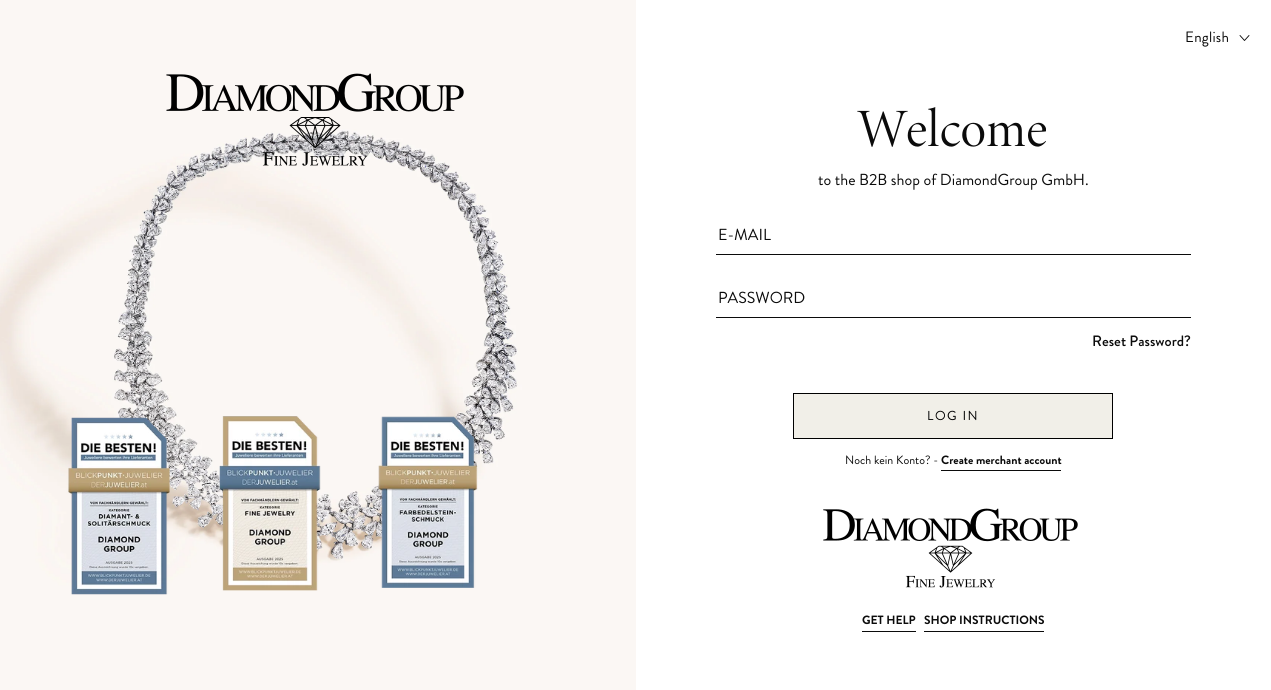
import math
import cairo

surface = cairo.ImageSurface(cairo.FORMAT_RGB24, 1271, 690)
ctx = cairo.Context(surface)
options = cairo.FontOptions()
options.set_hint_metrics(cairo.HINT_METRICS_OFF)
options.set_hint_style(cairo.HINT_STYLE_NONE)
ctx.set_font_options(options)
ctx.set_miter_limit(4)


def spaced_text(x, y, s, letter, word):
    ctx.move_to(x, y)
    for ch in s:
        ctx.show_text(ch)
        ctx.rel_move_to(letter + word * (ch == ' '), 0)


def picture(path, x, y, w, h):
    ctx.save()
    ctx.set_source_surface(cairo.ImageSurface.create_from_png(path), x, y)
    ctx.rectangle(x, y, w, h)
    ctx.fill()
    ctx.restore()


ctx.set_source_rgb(1, 1, 1)
ctx.paint()
picture("img1.png", 0, 0, 636, 690)
picture("img2.png", 166, 73, 298, 93)
picture("img3.png", 68, 417, 102, 178)
picture("img4.png", 219, 416, 102, 175)
picture("img5.png", 378, 416, 100, 172)
ctx.select_font_face("Brandon Grotesque")
ctx.set_font_size(15)
ctx.set_source_rgb(0.043, 0.043, 0.043)
spaced_text(1185, 42, "English", 0.25, 0)
ctx.new_path()
ctx.move_to(1249, 35.5)
ctx.line_to(1244.5, 40.5)
ctx.line_to(1240, 35.5)
ctx.set_line_width(0.9)
ctx.set_line_cap(cairo.LINE_CAP_ROUND)
ctx.set_line_join(cairo.LINE_JOIN_ROUND)
ctx.stroke()
ctx.select_font_face("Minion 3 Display")
ctx.set_font_size(54)
ctx.move_to(858, 146)
ctx.show_text("Welcome")
ctx.select_font_face("Brandon Grotesque")
ctx.set_font_size(16)
ctx.move_to(818, 185)
ctx.show_text("to the B2B shop of DiamondGroup GmbH.")
ctx.rectangle(716, 254, 475, 1)
ctx.fill()
ctx.move_to(718, 240)
ctx.show_text("E-MAIL")
ctx.rectangle(716, 317, 475, 1)
ctx.fill()
ctx.move_to(718, 303)
ctx.show_text("PASSWORD")
ctx.select_font_face("Brandon Grotesque Medium")
ctx.set_font_size(15)
ctx.move_to(1092, 346)
ctx.show_text("Reset Password?")
ctx.set_source_rgb(0.945, 0.937, 0.91)
ctx.rectangle(793.5, 393.5, 319, 45)
ctx.fill_preserve()
ctx.set_source_rgb(0, 0, 0)
ctx.set_line_width(1)
ctx.set_line_cap(cairo.LINE_CAP_BUTT)
ctx.set_line_join(cairo.LINE_JOIN_MITER)
ctx.stroke()
ctx.select_font_face("Brandon Grotesque")
ctx.set_font_size(13)
spaced_text(927, 420, "LOG IN", 1.5, 0)
ctx.set_font_size(12)
ctx.set_source_rgb(0.043, 0.043, 0.043)
ctx.move_to(845, 464)
ctx.show_text("Noch kein Konto? -")
ctx.select_font_face("Brandon Grotesque", cairo.FONT_SLANT_NORMAL, cairo.FONT_WEIGHT_BOLD)
ctx.move_to(941, 464)
ctx.show_text("Create merchant account")
ctx.rectangle(941, 470, 120, 1)
ctx.fill()
picture("img6.png", 823, 508, 255, 80)
ctx.move_to(862, 624)
ctx.show_text("GET HELP")
ctx.rectangle(862, 631, 54, 1)
ctx.fill()
ctx.move_to(924, 624)
ctx.show_text("SHOP INSTRUCTIONS")
ctx.rectangle(924, 631, 120, 1)
ctx.fill()
surface.write_to_png("page.png")
